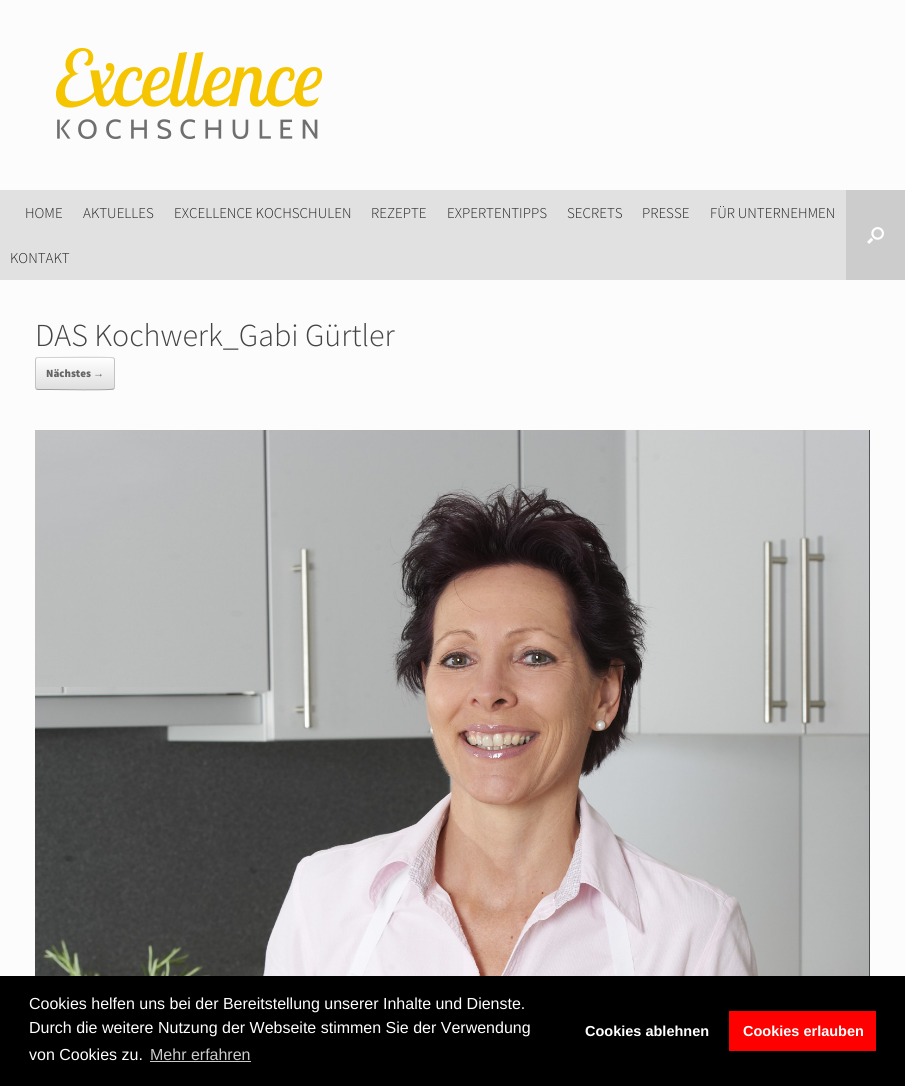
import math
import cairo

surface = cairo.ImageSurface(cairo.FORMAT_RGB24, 905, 1086)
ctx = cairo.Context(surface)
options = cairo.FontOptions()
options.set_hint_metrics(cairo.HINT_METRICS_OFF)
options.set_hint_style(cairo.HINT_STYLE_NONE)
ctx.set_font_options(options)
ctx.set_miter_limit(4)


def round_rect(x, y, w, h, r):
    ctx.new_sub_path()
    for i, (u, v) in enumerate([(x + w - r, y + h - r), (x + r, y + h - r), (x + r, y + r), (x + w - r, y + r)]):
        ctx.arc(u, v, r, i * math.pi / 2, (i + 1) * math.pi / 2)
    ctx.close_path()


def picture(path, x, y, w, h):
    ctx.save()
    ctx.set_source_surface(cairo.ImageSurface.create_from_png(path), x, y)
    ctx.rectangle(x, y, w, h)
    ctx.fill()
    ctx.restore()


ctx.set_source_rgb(0.988, 0.988, 0.988)
ctx.paint()
picture("img1.png", 56, 48, 266, 91)
ctx.set_source_rgb(0.882, 0.882, 0.882)
ctx.rectangle(0, 190, 846, 90)
ctx.fill()
ctx.select_font_face("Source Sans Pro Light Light")
ctx.set_font_size(15)
ctx.set_source_rgb(0.133, 0.133, 0.133)
ctx.move_to(25, 218)
ctx.show_text("HOME")
ctx.move_to(83, 218)
ctx.show_text("AKTUELLES")
ctx.move_to(174, 218)
ctx.show_text("EXCELLENCE KOCHSCHULEN")
ctx.move_to(371, 218)
ctx.show_text("REZEPTE")
ctx.move_to(447, 218)
ctx.show_text("EXPERTENTIPPS")
ctx.move_to(567, 218)
ctx.show_text("SECRETS")
ctx.move_to(642, 218)
ctx.show_text("PRESSE")
ctx.move_to(710, 218)
ctx.show_text("FÜR UNTERNEHMEN")
ctx.move_to(10, 263)
ctx.show_text("KONTAKT")
ctx.set_source_rgb(0.8, 0.8, 0.8)
ctx.rectangle(846, 190, 59, 90)
ctx.fill()
picture("img2.png", 867, 227, 17, 17)
ctx.set_font_size(32)
ctx.set_source_rgb(0.267, 0.267, 0.267)
ctx.move_to(35, 346)
ctx.show_text("DAS Kochwerk_Gabi Gürtler")
ctx.save()
round_rect(35, 357, 80, 33, 3)
ctx.clip()
gradient = cairo.LinearGradient(36, 358, 36, 327)
gradient.add_color_stop_rgba(0, 0.875, 0.875, 0.875, 1)
gradient.add_color_stop_rgba(1, 1, 1, 1, 1)
ctx.set_source(gradient)
ctx.rectangle(35, 357, 80, 1)
ctx.fill()
gradient = cairo.LinearGradient(36, 389, 36, 358)
gradient.add_color_stop_rgba(0, 0.875, 0.875, 0.875, 1)
gradient.add_color_stop_rgba(1, 1, 1, 1, 1)
ctx.set_source(gradient)
ctx.rectangle(35, 358, 80, 31)
ctx.fill()
ctx.restore()
ctx.new_path()
ctx.move_to(36, 358)
ctx.line_to(38, 357.5)
ctx.line_to(50.5, 357.5)
ctx.curve_to(57, 357.5, 111.5, 356.5, 113.5, 358)
ctx.line_to(114, 358)
ctx.set_source_rgb(0.824, 0.824, 0.824)
ctx.set_line_width(1)
ctx.stroke()
ctx.new_path()
ctx.move_to(114, 358)
ctx.curve_to(114, 358.5, 114.5, 359.5, 114.5, 360)
ctx.line_to(114.5, 387)
ctx.curve_to(114.5, 387.5, 114, 388.5, 114, 389)
ctx.set_source_rgb(0.765, 0.765, 0.765)
ctx.stroke()
ctx.new_path()
ctx.move_to(114, 389)
ctx.line_to(113.5, 389)
ctx.curve_to(111.5, 390.5, 57, 389.5, 50.5, 389.5)
ctx.line_to(38, 389.5)
ctx.line_to(36, 389)
ctx.set_source_rgb(0.624, 0.624, 0.624)
ctx.stroke()
ctx.new_path()
ctx.move_to(36, 389)
ctx.curve_to(36, 388.5, 35.5, 387.5, 35.5, 387)
ctx.line_to(35.5, 360)
ctx.curve_to(35.5, 359.5, 36, 358.5, 36, 358)
ctx.set_source_rgb(0.765, 0.765, 0.765)
ctx.stroke()
ctx.select_font_face("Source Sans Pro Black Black")
ctx.set_font_size(11)
ctx.set_source_rgb(0.392, 0.392, 0.392)
ctx.move_to(46, 377)
ctx.show_text("Nächstes")
ctx.select_font_face("Liberation Serif", cairo.FONT_SLANT_NORMAL, cairo.FONT_WEIGHT_BOLD)
ctx.move_to(93, 377)
ctx.show_text("→")
picture("img3.png", 35, 430, 835, 546)
ctx.set_source_rgb(0, 0, 0)
ctx.rectangle(0, 976, 905, 110)
ctx.fill()
ctx.select_font_face("Liberation Sans")
ctx.set_font_size(16)
ctx.set_source_rgb(1, 1, 1)
ctx.move_to(29, 1009)
ctx.show_text("Cookies helfen uns bei der Bereitstellung unserer Inhalte und Dienste.")
ctx.move_to(29, 1033)
ctx.show_text("Durch die weitere Nutzung der Webseite stimmen Sie der Verwendung")
ctx.move_to(29, 1060)
ctx.show_text("von Cookies zu.")
ctx.set_source_rgb(0.8, 0.8, 0.8)
ctx.move_to(150, 1060)
ctx.show_text("Mehr erfahren")
ctx.rectangle(150, 1061, 101, 1)
ctx.fill()
ctx.select_font_face("Liberation Sans", cairo.FONT_SLANT_NORMAL, cairo.FONT_WEIGHT_BOLD)
ctx.set_font_size(14.5)
ctx.set_source_rgb(1, 1, 1)
ctx.move_to(585, 1036)
ctx.show_text("Cookies ablehnen")
ctx.set_source_rgb(1, 0, 0)
ctx.rectangle(729, 1011, 147, 40)
ctx.fill()
ctx.set_source_rgb(1, 1, 1)
ctx.move_to(743, 1036)
ctx.show_text("Cookies erlauben")
surface.write_to_png("page.png")
